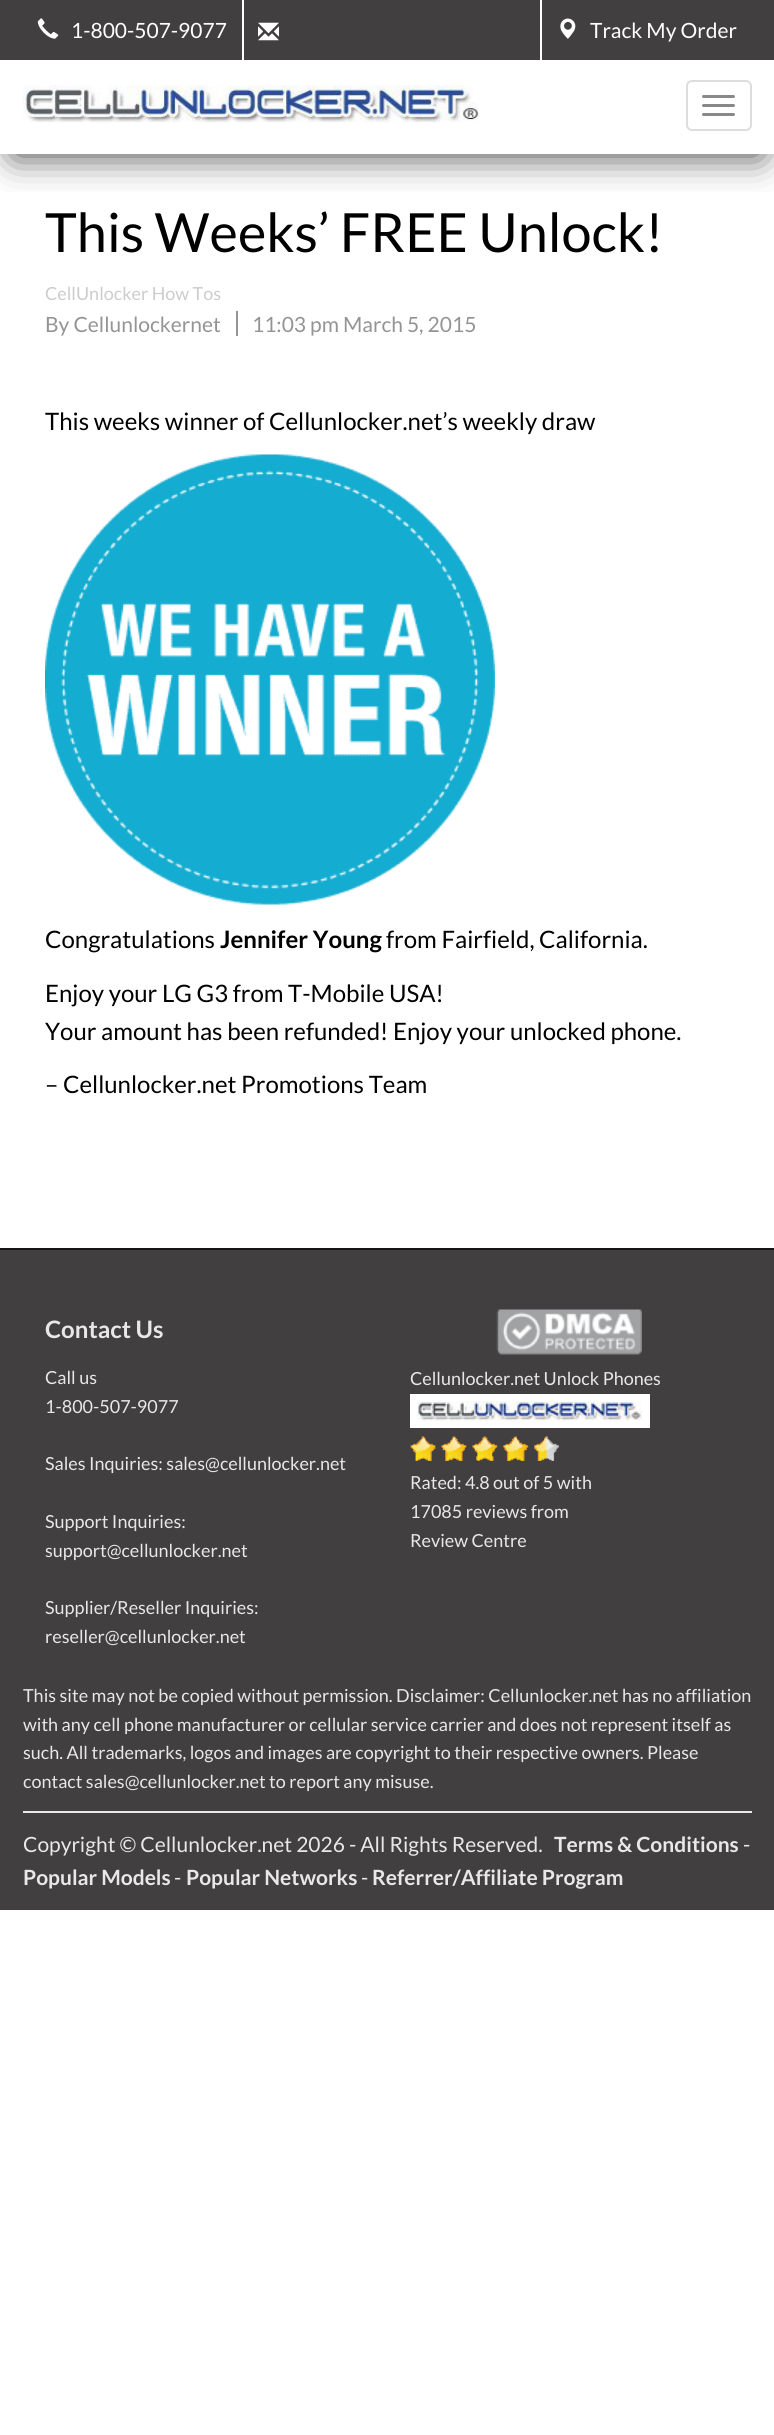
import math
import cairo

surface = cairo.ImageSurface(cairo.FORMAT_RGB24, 774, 2435)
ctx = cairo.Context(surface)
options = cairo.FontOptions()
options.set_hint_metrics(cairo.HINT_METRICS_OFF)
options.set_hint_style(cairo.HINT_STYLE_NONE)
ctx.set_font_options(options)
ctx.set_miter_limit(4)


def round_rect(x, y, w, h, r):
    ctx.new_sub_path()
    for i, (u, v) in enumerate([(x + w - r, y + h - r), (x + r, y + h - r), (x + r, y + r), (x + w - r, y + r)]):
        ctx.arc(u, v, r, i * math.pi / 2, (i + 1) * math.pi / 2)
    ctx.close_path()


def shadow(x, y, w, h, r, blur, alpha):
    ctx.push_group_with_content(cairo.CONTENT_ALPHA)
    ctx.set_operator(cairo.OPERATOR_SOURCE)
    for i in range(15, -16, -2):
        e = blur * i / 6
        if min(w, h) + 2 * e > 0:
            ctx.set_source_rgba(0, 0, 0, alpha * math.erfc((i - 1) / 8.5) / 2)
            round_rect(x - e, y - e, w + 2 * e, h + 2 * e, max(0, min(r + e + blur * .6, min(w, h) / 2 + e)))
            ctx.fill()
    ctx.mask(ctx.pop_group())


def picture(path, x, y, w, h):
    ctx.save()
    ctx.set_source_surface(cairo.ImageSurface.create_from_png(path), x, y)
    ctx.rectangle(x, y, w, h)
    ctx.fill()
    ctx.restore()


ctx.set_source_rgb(1, 1, 1)
ctx.paint()
ctx.save()
ctx.rectangle(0, 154, 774, 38)
ctx.clip()
ctx.set_source_rgb(0, 0, 0)
shadow(14, 29, 747, 126, 0, 19, 0.75)
ctx.restore()
ctx.set_source_rgb(0.255, 0.247, 0.251)
ctx.rectangle(0, 0, 774, 60)
ctx.fill()
ctx.set_source_rgb(1, 1, 1)
ctx.rectangle(242, 0, 2, 60)
ctx.fill()
picture("img1.png", 37, 18, 22, 21)
ctx.select_font_face("Lato")
ctx.set_font_size(21)
ctx.move_to(71, 38)
ctx.show_text("1-800-507-9077")
picture("img2.png", 258, 22, 21, 19)
ctx.rectangle(540, 0, 2, 60)
ctx.fill()
picture("img3.png", 560, 18, 16, 21)
ctx.move_to(590, 38)
ctx.show_text("Track My Order")
ctx.rectangle(0, 153, 774, 1)
ctx.fill()
picture("img4.png", 22, 85, 457, 38)
round_rect(687, 81, 64, 49, 5)
ctx.set_source_rgb(0.867, 0.867, 0.867)
ctx.stroke()
ctx.set_source_rgb(0.533, 0.533, 0.533)
round_rect(702, 95, 33, 3, 1.5)
ctx.fill()
round_rect(702, 104, 33, 3, 1.5)
ctx.fill()
round_rect(702, 113, 33, 3, 1.5)
ctx.fill()
ctx.set_font_size(54)
ctx.set_source_rgb(0, 0, 0)
ctx.move_to(45, 252)
ctx.show_text("This Weeks’ FREE Unlock!")
ctx.set_font_size(18)
ctx.set_source_rgb(0.8, 0.8, 0.8)
ctx.move_to(45, 300)
ctx.show_text("CellUnlocker How Tos")
ctx.set_font_size(21)
ctx.set_source_rgb(0.58, 0.58, 0.58)
ctx.move_to(45, 332)
ctx.show_text("By Cellunlockernet")
ctx.rectangle(236, 311, 2, 25)
ctx.fill()
ctx.move_to(252, 332)
ctx.show_text("11:03 pm March 5, 2015")
ctx.set_font_size(24)
ctx.set_source_rgb(0, 0, 0)
ctx.move_to(45, 430)
ctx.show_text("This weeks winner of Cellunlocker.net’s weekly draw")
picture("img5.png", 45, 454, 450, 451)
ctx.move_to(45, 948)
ctx.show_text("Congratulations")
ctx.select_font_face("Lato", cairo.FONT_SLANT_NORMAL, cairo.FONT_WEIGHT_BOLD)
ctx.move_to(220, 948)
ctx.show_text("Jennifer Young")
ctx.select_font_face("Lato")
ctx.move_to(386, 948)
ctx.show_text("from Fairfield, California.")
ctx.move_to(45, 1002)
ctx.show_text("Enjoy your LG G3 from T-Mobile USA!")
ctx.move_to(45, 1040)
ctx.show_text("Your amount has been refunded! Enjoy your unlocked phone.")
ctx.move_to(45, 1093)
ctx.show_text("– Cellunlocker.net Promotions Team")
ctx.set_source_rgb(0.255, 0.247, 0.251)
ctx.rectangle(0, 1250, 774, 660)
ctx.fill()
ctx.set_source_rgb(0.09, 0.086, 0.09)
ctx.rectangle(0, 1248, 774, 2)
ctx.fill()
ctx.select_font_face("Lato", cairo.FONT_SLANT_NORMAL, cairo.FONT_WEIGHT_BOLD)
ctx.set_source_rgb(0.91, 0.91, 0.91)
ctx.move_to(45, 1338)
ctx.show_text("Contact Us")
ctx.select_font_face("Lato")
ctx.set_font_size(18)
ctx.move_to(45, 1384)
ctx.show_text("Call us")
ctx.move_to(45, 1413)
ctx.show_text("1-800-507-9077")
ctx.move_to(45, 1470)
ctx.show_text("Sales Inquiries: sales@cellunlocker.net")
ctx.move_to(45, 1528)
ctx.show_text("Support Inquiries:")
ctx.move_to(45, 1557)
ctx.show_text("support@cellunlocker.net")
ctx.move_to(45, 1614)
ctx.show_text("Supplier/Reseller Inquiries:")
ctx.move_to(45, 1643)
ctx.show_text("reseller@cellunlocker.net")
picture("img6.png", 496, 1309, 146, 46)
ctx.move_to(410, 1385)
ctx.show_text("Cellunlocker.net Unlock Phones")
ctx.set_source_rgb(1, 1, 1)
ctx.rectangle(410, 1394, 240, 34)
ctx.fill()
picture("img7.png", 417, 1401, 225, 20)
picture("img8.png", 410, 1436, 149, 25)
ctx.set_source_rgb(0.91, 0.91, 0.91)
ctx.move_to(410, 1489)
ctx.show_text("Rated: 4.8 out of 5 with")
ctx.move_to(410, 1518)
ctx.show_text("17085 reviews from")
ctx.move_to(410, 1547)
ctx.show_text("Review Centre")
ctx.move_to(23, 1702)
ctx.show_text("This site may not be copied without permission. Disclaimer: Cellunlocker.net has no affiliation")
ctx.move_to(23, 1731)
ctx.show_text("with any cell phone manufacturer or cellular service carrier and does not represent itself as")
ctx.move_to(23, 1759)
ctx.show_text("such. All trademarks, logos and images are copyright to their respective owners. Please")
ctx.move_to(23, 1788)
ctx.show_text("contact sales@cellunlocker.net to report any misuse.")
ctx.rectangle(23, 1811, 729, 2)
ctx.fill()
ctx.set_font_size(21)
ctx.move_to(23, 1852)
ctx.show_text("Copyright © Cellunlocker.net 2026 - All Rights Reserved.")
ctx.select_font_face("Lato", cairo.FONT_SLANT_NORMAL, cairo.FONT_WEIGHT_BOLD)
ctx.move_to(554, 1852)
ctx.show_text("Terms & Conditions")
ctx.select_font_face("Lato")
ctx.move_to(743, 1852)
ctx.show_text("-")
ctx.select_font_face("Lato", cairo.FONT_SLANT_NORMAL, cairo.FONT_WEIGHT_BOLD)
ctx.move_to(23, 1885)
ctx.show_text("Popular Models")
ctx.select_font_face("Lato")
ctx.move_to(174, 1885)
ctx.show_text("-")
ctx.select_font_face("Lato", cairo.FONT_SLANT_NORMAL, cairo.FONT_WEIGHT_BOLD)
ctx.move_to(186, 1885)
ctx.show_text("Popular Networks")
ctx.select_font_face("Lato")
ctx.move_to(361, 1885)
ctx.show_text("-")
ctx.select_font_face("Lato", cairo.FONT_SLANT_NORMAL, cairo.FONT_WEIGHT_BOLD)
ctx.move_to(372, 1885)
ctx.show_text("Referrer/Affiliate Program")
surface.write_to_png("page.png")
